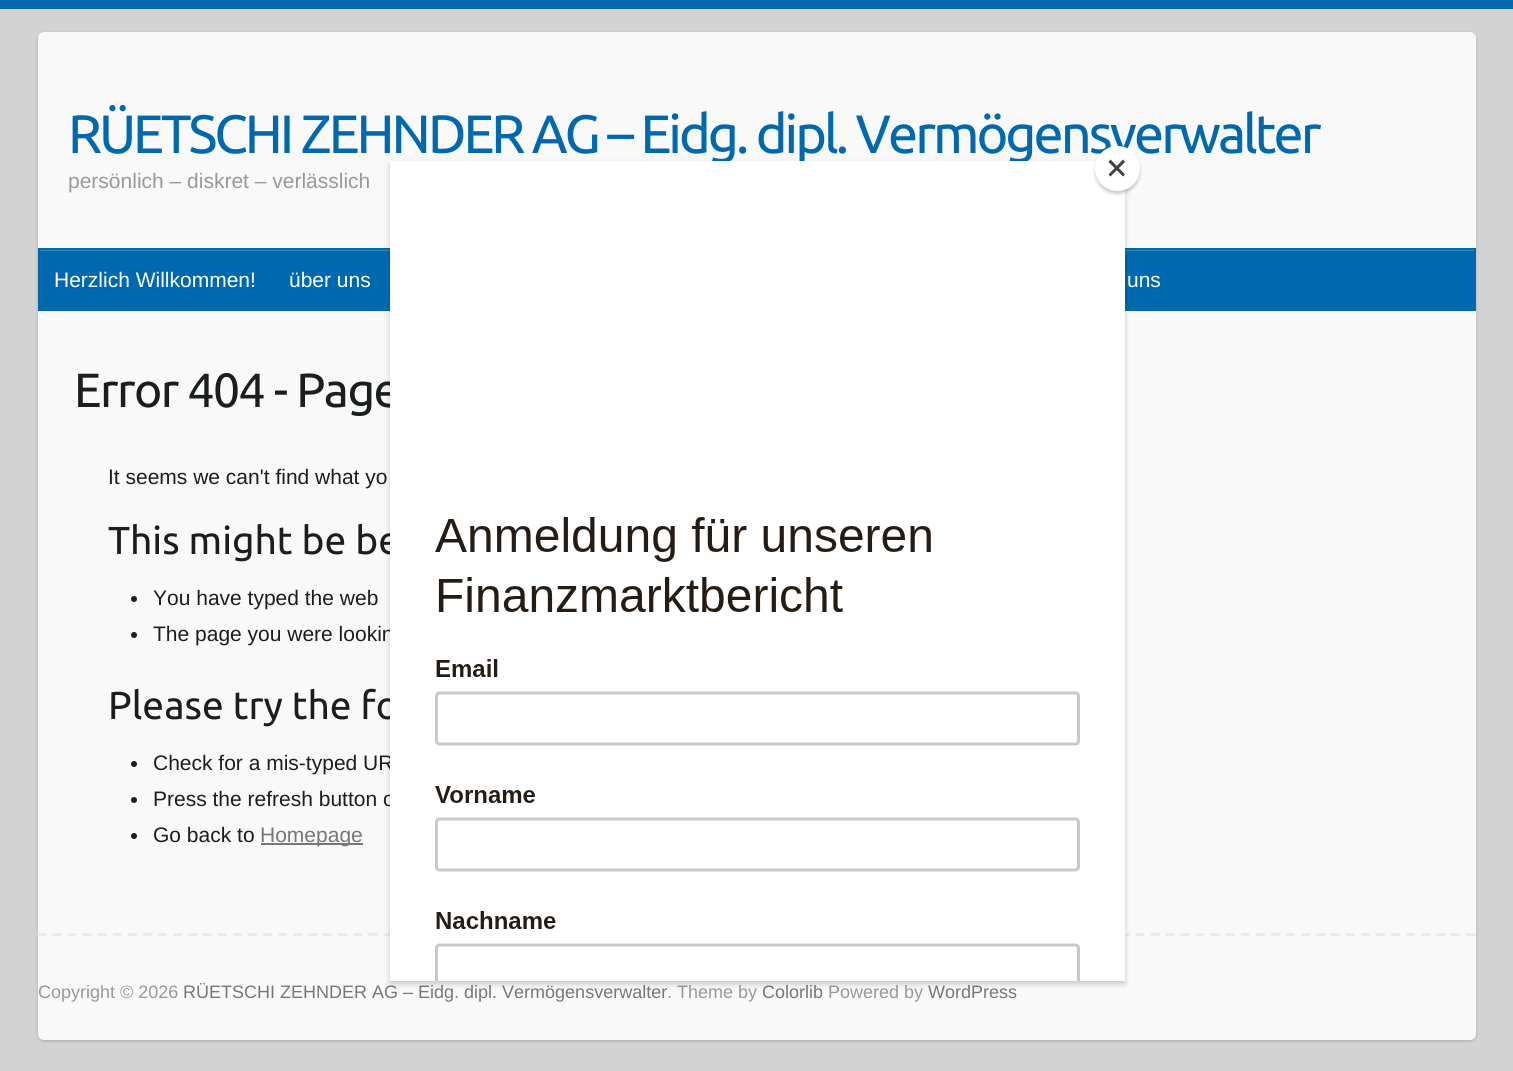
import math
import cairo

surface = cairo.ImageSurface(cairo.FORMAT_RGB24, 1513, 1071)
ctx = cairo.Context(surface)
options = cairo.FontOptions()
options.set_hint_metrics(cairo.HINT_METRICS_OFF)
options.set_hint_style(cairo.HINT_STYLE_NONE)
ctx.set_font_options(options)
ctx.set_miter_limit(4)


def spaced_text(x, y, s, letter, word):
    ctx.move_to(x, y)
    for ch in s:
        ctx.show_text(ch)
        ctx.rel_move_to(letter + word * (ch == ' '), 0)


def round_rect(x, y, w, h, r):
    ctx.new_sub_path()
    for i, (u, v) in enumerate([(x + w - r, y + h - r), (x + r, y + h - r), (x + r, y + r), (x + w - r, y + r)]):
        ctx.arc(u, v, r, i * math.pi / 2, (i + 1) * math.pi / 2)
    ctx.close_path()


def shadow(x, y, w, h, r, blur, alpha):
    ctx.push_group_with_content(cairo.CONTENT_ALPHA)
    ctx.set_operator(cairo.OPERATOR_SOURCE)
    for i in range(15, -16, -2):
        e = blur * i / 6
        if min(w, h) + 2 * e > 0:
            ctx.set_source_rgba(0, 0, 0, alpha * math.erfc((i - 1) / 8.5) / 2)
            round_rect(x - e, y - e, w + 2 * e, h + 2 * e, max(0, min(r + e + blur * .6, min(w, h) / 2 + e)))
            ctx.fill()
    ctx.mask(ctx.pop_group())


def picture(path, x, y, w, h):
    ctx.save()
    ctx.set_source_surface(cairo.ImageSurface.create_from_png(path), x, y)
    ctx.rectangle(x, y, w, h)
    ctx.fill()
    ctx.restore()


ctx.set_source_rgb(0.827, 0.827, 0.827)
ctx.paint()
ctx.set_source_rgb(0, 0.412, 0.678)
ctx.rectangle(0, 0, 1513, 9)
ctx.fill()
ctx.set_source_rgb(0, 0, 0)
shadow(38, 33, 1438, 1008, 6, 1.5, 0.2)
ctx.set_source_rgb(0.973, 0.973, 0.973)
round_rect(38, 32, 1438, 1008, 6)
ctx.fill()
ctx.select_font_face("Ubuntu")
ctx.set_font_size(54)
ctx.set_source_rgb(0, 0.412, 0.678)
spaced_text(68, 153, "RÜETSCHI ZEHNDER AG – Eidg. dipl. Vermögensverwalter", -3, 0)
ctx.select_font_face("Liberation Sans")
ctx.set_font_size(21)
ctx.set_source_rgb(0.6, 0.6, 0.6)
ctx.move_to(68, 188)
ctx.show_text("persönlich – diskret – verlässlich")
ctx.set_source_rgb(0, 0.412, 0.678)
ctx.rectangle(40, 251, 1434, 58)
ctx.fill()
ctx.set_source_rgb(0.2, 0.529, 0.741)
ctx.rectangle(39, 250, 1436, 1)
ctx.fill()
ctx.rectangle(39, 249, 1436, 61)
ctx.set_source_rgb(0, 0.412, 0.678)
ctx.stroke()
ctx.set_source_rgb(1, 1, 1)
ctx.move_to(54, 287)
ctx.show_text("Herzlich Willkommen!")
ctx.move_to(289, 287)
ctx.show_text("über uns")
ctx.move_to(1127, 287)
ctx.show_text("uns")
ctx.select_font_face("Ubuntu")
ctx.set_font_size(48)
ctx.set_source_rgb(0.106, 0.118, 0.122)
spaced_text(74, 407, "Error 404 - Page", -1.5, 0)
ctx.select_font_face("Liberation Sans")
ctx.set_font_size(21)
ctx.move_to(108, 484)
ctx.show_text("It seems we can't find what yo")
ctx.select_font_face("Ubuntu")
ctx.set_font_size(39)
ctx.move_to(108, 554)
ctx.show_text("This might be be")
ctx.set_source_rgb(0.114, 0.114, 0.114)
ctx.new_path()
ctx.arc(134, 599, 3, 0, 2 * math.pi)
ctx.fill()
ctx.select_font_face("Liberation Sans")
ctx.set_font_size(21)
ctx.set_source_rgb(0.106, 0.118, 0.122)
ctx.move_to(153, 605)
ctx.show_text("You have typed the web")
ctx.set_source_rgb(0.114, 0.114, 0.114)
ctx.new_path()
ctx.arc(134, 635, 3, 0, 2 * math.pi)
ctx.fill()
ctx.set_source_rgb(0.106, 0.118, 0.122)
ctx.move_to(153, 641)
ctx.show_text("The page you were lookin")
ctx.select_font_face("Ubuntu")
ctx.set_font_size(39)
ctx.move_to(108, 719)
ctx.show_text("Please try the fo")
ctx.set_source_rgb(0.114, 0.114, 0.114)
ctx.new_path()
ctx.arc(134, 764, 3, 0, 2 * math.pi)
ctx.fill()
ctx.select_font_face("Liberation Sans")
ctx.set_font_size(21)
ctx.set_source_rgb(0.106, 0.118, 0.122)
ctx.move_to(153, 770)
ctx.show_text("Check for a mis-typed UR")
ctx.set_source_rgb(0.114, 0.114, 0.114)
ctx.new_path()
ctx.arc(134, 800, 3, 0, 2 * math.pi)
ctx.fill()
ctx.set_source_rgb(0.106, 0.118, 0.122)
ctx.move_to(153, 806)
ctx.show_text("Press the refresh button o")
ctx.set_source_rgb(0.114, 0.114, 0.114)
ctx.new_path()
ctx.arc(134, 836, 3, 0, 2 * math.pi)
ctx.fill()
ctx.set_source_rgb(0.106, 0.118, 0.122)
ctx.move_to(153, 842)
ctx.show_text("Go back to")
ctx.set_source_rgb(0.467, 0.467, 0.467)
ctx.rectangle(261, 843, 102, 2)
ctx.fill()
ctx.move_to(260, 842)
ctx.show_text("Homepage")
ctx.new_path()
ctx.move_to(37.5, 934.5)
ctx.line_to(1476, 934.5)
ctx.set_source_rgb(0.918, 0.918, 0.918)
ctx.set_line_width(3)
ctx.set_dash([9, 6.04])
ctx.stroke()
ctx.set_font_size(18)
ctx.set_source_rgb(0.6, 0.6, 0.6)
ctx.move_to(38, 998)
ctx.show_text("Copyright © 2026")
ctx.set_source_rgb(0.467, 0.467, 0.467)
ctx.move_to(183, 998)
ctx.show_text("RÜETSCHI ZEHNDER AG – Eidg. dipl. Vermögensverwalter")
ctx.set_source_rgb(0.6, 0.6, 0.6)
ctx.move_to(667, 998)
ctx.show_text(". Theme by")
ctx.set_source_rgb(0.467, 0.467, 0.467)
ctx.move_to(762, 998)
ctx.show_text("Colorlib")
ctx.set_source_rgb(0.6, 0.6, 0.6)
ctx.move_to(828, 998)
ctx.show_text("Powered by")
ctx.set_source_rgb(0.467, 0.467, 0.467)
ctx.move_to(928, 998)
ctx.show_text("WordPress")
ctx.set_source_rgb(0, 0, 0)
shadow(390, 164, 735, 820, 0, 3, 0.2)
picture("img1.png", 390, 161, 735, 820)
shadow(1095, 149, 45, 45, 22.5, 1.5, 0.2)
ctx.set_source_rgb(1, 1, 1)
ctx.arc(1117.5, 168.5, 22.5, 0, 2 * math.pi)
ctx.fill()
ctx.set_source_rgb(0.255, 0.255, 0.255)
ctx.new_path()
ctx.move_to(1123, 159.5)
ctx.line_to(1125, 162)
ctx.line_to(1110.5, 176.5)
ctx.line_to(1108.5, 174.5)
ctx.close_path()
ctx.fill()
ctx.new_path()
ctx.move_to(1108.5, 162)
ctx.line_to(1110.5, 159.5)
ctx.line_to(1125, 174.5)
ctx.line_to(1123, 176.5)
ctx.close_path()
ctx.fill()
surface.write_to_png("page.png")
